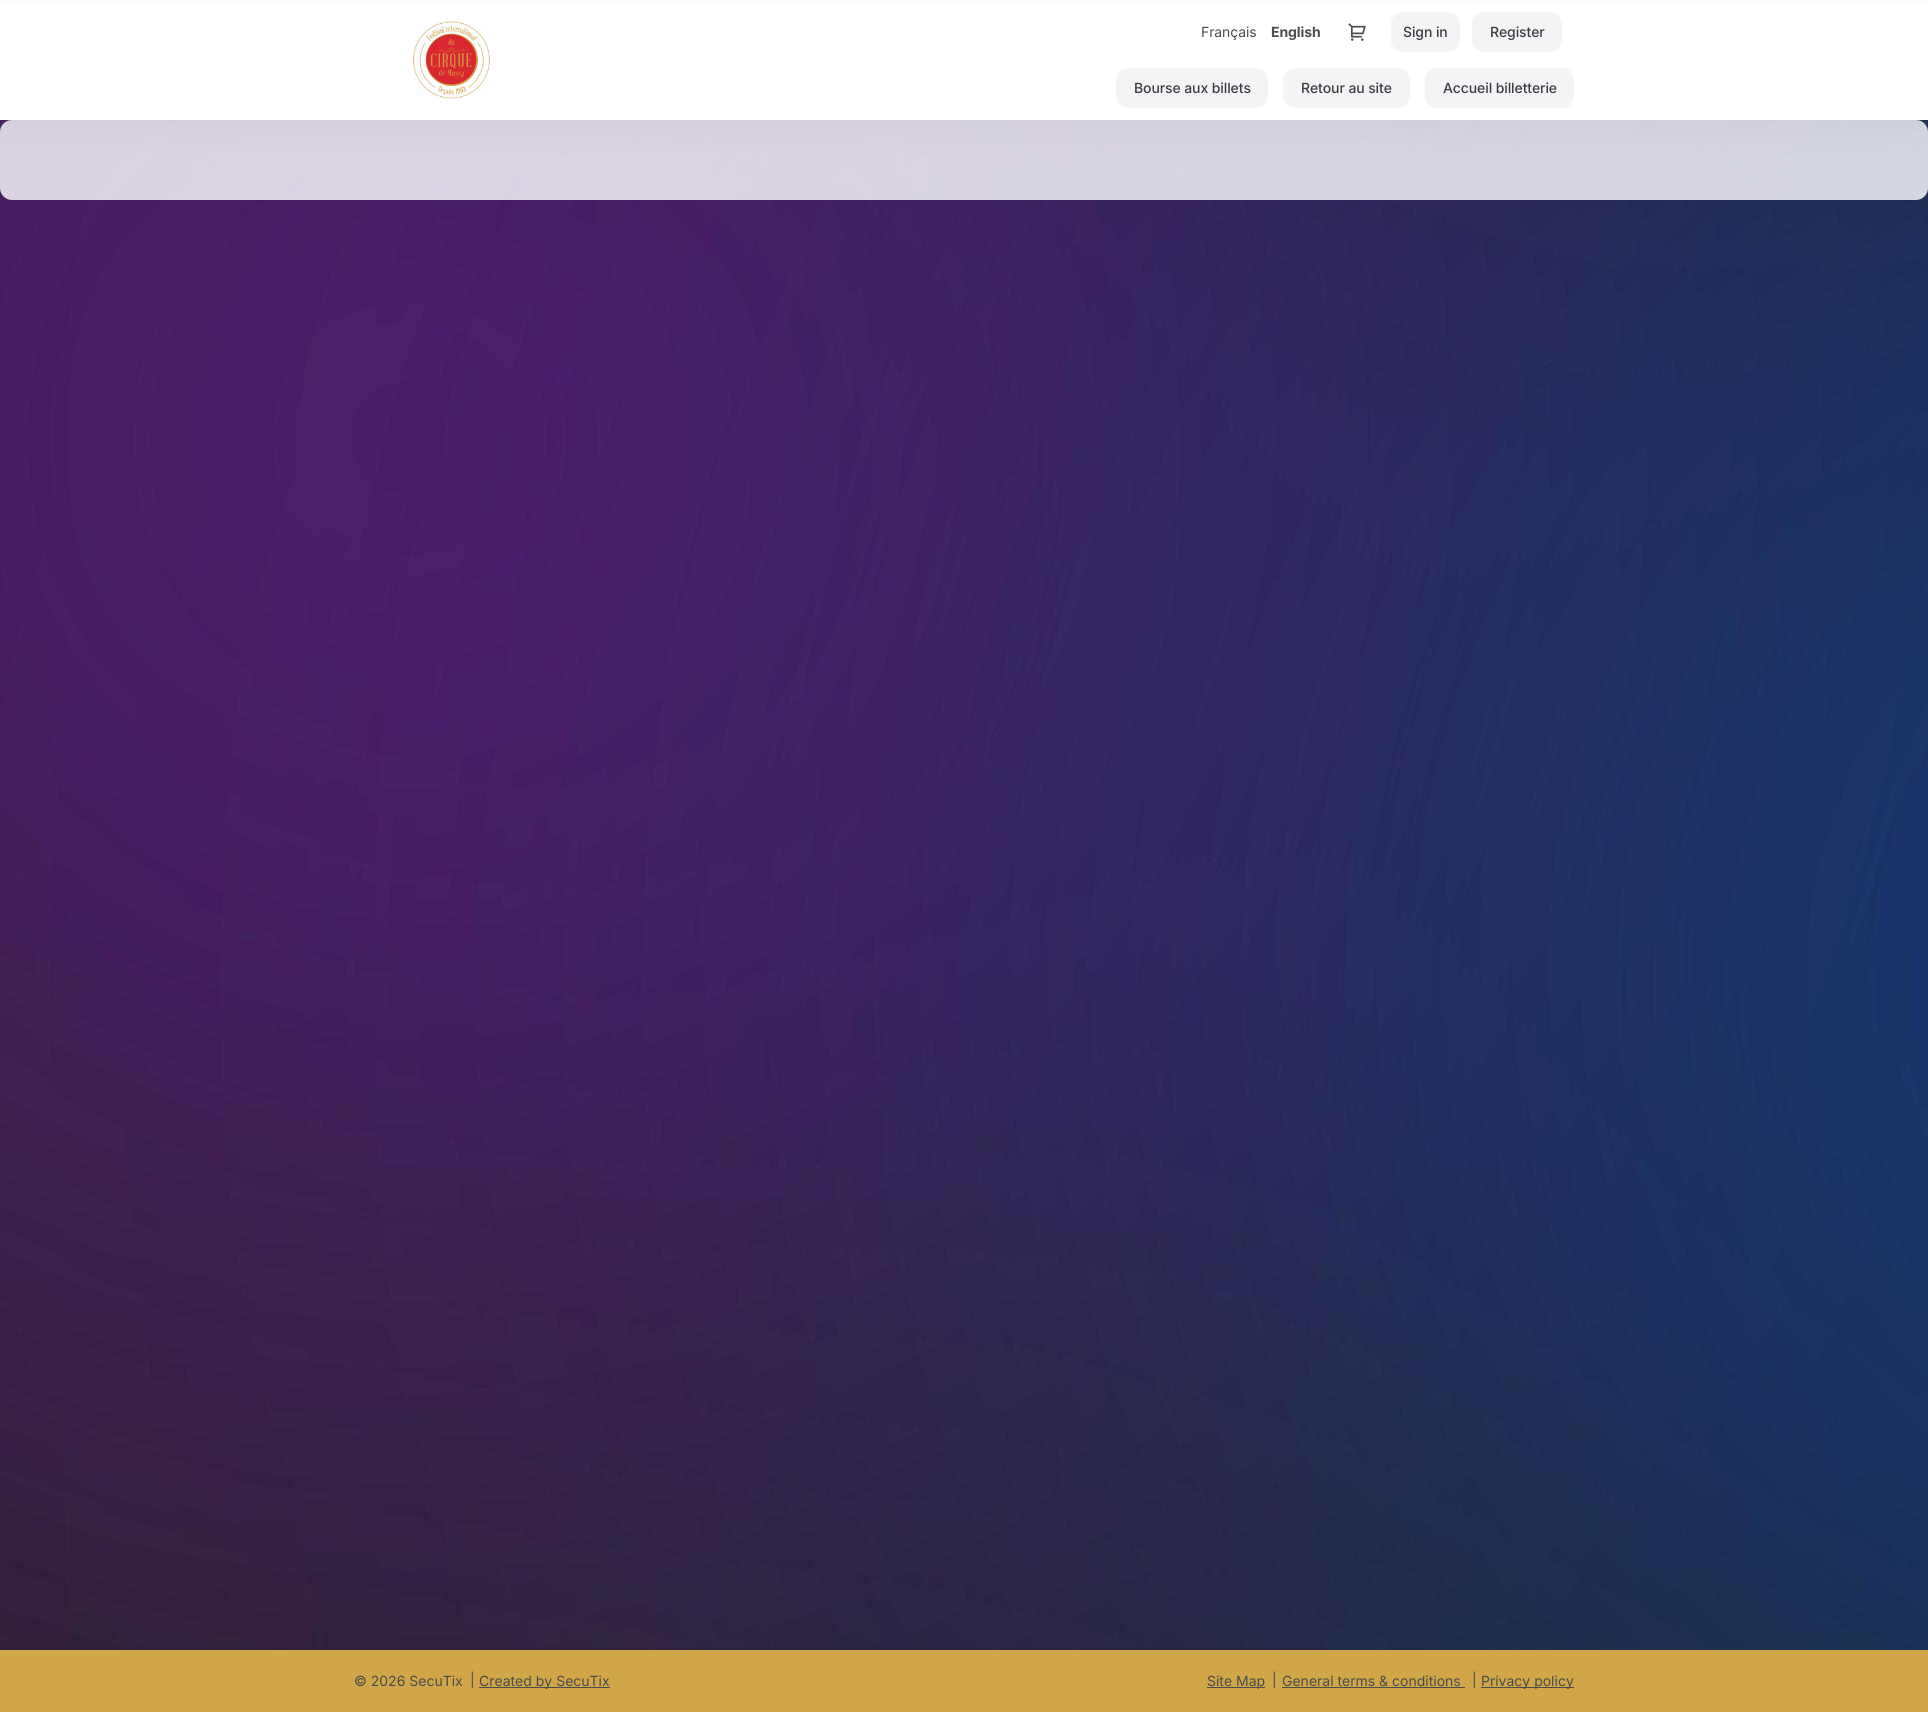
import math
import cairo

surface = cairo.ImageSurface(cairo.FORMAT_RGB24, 1928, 1712)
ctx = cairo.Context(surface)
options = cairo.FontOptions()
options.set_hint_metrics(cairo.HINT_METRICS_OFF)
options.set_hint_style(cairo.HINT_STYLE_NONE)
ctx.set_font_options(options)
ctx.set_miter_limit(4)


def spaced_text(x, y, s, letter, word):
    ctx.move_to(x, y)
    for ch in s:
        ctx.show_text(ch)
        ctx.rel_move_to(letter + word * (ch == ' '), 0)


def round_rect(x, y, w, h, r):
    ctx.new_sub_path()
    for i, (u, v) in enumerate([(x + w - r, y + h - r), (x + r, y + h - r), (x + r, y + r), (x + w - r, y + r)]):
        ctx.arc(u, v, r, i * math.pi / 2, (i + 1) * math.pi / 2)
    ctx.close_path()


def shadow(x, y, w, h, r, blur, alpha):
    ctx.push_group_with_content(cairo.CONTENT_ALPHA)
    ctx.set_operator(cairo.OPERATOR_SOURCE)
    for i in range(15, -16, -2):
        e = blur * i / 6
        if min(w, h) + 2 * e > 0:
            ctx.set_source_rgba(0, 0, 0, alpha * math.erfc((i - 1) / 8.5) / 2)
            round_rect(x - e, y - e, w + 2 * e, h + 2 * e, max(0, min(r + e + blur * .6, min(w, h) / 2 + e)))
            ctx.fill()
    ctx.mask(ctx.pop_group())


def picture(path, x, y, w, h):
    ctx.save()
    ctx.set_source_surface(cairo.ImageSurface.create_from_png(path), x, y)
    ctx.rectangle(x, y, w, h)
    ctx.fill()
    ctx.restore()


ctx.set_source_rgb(1, 1, 1)
ctx.paint()
picture("img1.png", 0, 120, 1928, 1530)
ctx.set_source_rgba(1, 1, 1, 0.81)
round_rect(0, 120, 1928, 80, 12)
ctx.fill()
ctx.set_source_rgb(0.478, 0.478, 0.478)
shadow(0, 14, 1928, 120, 0, 15, 0.08)
ctx.set_source_rgb(1, 1, 1)
ctx.rectangle(0, 3, 1928, 117)
ctx.fill()
picture("img2.png", 413, 21, 77, 78)
ctx.select_font_face("Inter")
ctx.set_font_size(14)
ctx.set_source_rgb(0.294, 0.298, 0.302)
spaced_text(1201, 37, "Français", -0.1, 0)
ctx.select_font_face("Inter", cairo.FONT_SLANT_NORMAL, cairo.FONT_WEIGHT_BOLD)
spaced_text(1271, 37, "English", -0.1, 0)
picture("img3.png", 1348, 23, 18, 18)
ctx.set_source_rgb(0.957, 0.957, 0.961)
round_rect(1391, 12, 69, 40, 12)
ctx.fill()
ctx.select_font_face("Inter Medium")
ctx.set_source_rgb(0.231, 0.239, 0.251)
spaced_text(1403, 37, "Sign in", -0.1, 0)
ctx.set_source_rgb(0.957, 0.957, 0.961)
round_rect(1472, 12, 90, 40, 12)
ctx.fill()
ctx.set_source_rgb(0.231, 0.239, 0.251)
spaced_text(1490, 37, "Register", -0.1, 0)
ctx.set_source_rgb(0.957, 0.957, 0.961)
round_rect(1116, 68, 152, 40, 12)
ctx.fill()
ctx.set_source_rgb(0.231, 0.239, 0.251)
spaced_text(1134, 93, "Bourse aux billets", -0.1, 0)
ctx.set_source_rgb(0.957, 0.957, 0.961)
round_rect(1283, 68, 127, 40, 12)
ctx.fill()
ctx.set_source_rgb(0.231, 0.239, 0.251)
spaced_text(1301, 93, "Retour au site", -0.1, 0)
ctx.set_source_rgb(0.957, 0.957, 0.961)
round_rect(1425, 68, 149, 40, 12)
ctx.fill()
ctx.set_source_rgb(0.231, 0.239, 0.251)
spaced_text(1443, 93, "Accueil billetterie", -0.1, 0)
ctx.set_source_rgb(0.82, 0.651, 0.282)
ctx.rectangle(0, 1650, 1928, 62)
ctx.fill()
ctx.select_font_face("Inter")
ctx.set_source_rgb(0.294, 0.298, 0.302)
ctx.move_to(354, 1686)
ctx.show_text("© 2026 SecuTix")
ctx.move_to(470, 1685)
ctx.show_text("|")
ctx.rectangle(479, 1687, 131, 1)
ctx.fill()
ctx.move_to(479, 1686)
ctx.show_text("Created by SecuTix")
ctx.rectangle(1207, 1687, 58, 1)
ctx.fill()
ctx.move_to(1207, 1686)
ctx.show_text("Site Map")
ctx.move_to(1272, 1685)
ctx.show_text("|")
ctx.move_to(1282, 1686)
ctx.show_text("General terms & conditions")
ctx.rectangle(1282, 1687, 183, 1)
ctx.fill()
ctx.move_to(1472, 1685)
ctx.show_text("|")
ctx.rectangle(1481, 1687, 93, 1)
ctx.fill()
ctx.move_to(1481, 1686)
ctx.show_text("Privacy policy")
surface.write_to_png("page.png")
